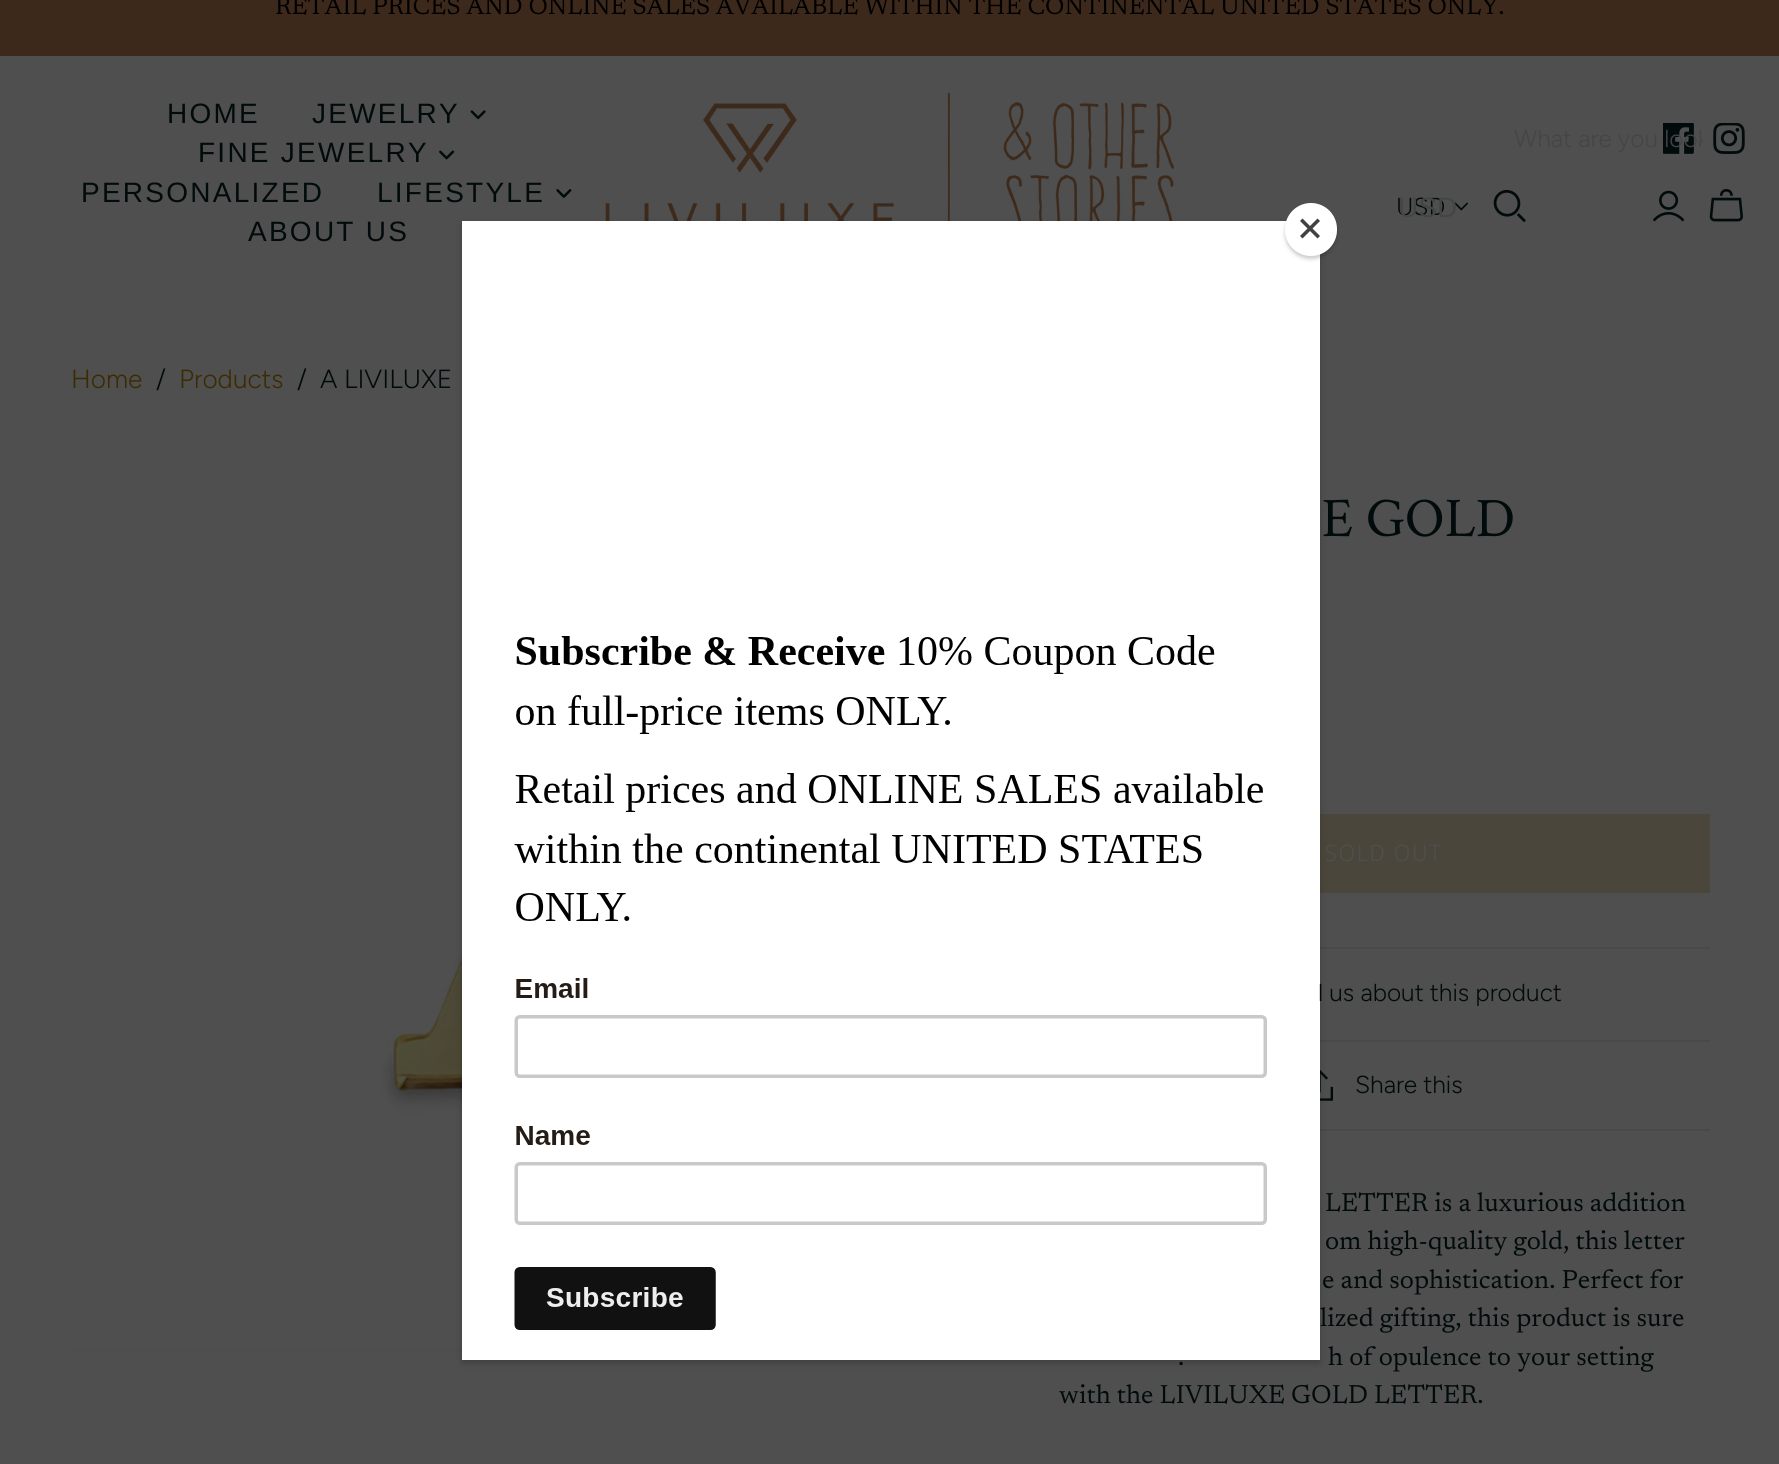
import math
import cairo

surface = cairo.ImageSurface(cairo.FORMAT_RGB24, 1779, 1464)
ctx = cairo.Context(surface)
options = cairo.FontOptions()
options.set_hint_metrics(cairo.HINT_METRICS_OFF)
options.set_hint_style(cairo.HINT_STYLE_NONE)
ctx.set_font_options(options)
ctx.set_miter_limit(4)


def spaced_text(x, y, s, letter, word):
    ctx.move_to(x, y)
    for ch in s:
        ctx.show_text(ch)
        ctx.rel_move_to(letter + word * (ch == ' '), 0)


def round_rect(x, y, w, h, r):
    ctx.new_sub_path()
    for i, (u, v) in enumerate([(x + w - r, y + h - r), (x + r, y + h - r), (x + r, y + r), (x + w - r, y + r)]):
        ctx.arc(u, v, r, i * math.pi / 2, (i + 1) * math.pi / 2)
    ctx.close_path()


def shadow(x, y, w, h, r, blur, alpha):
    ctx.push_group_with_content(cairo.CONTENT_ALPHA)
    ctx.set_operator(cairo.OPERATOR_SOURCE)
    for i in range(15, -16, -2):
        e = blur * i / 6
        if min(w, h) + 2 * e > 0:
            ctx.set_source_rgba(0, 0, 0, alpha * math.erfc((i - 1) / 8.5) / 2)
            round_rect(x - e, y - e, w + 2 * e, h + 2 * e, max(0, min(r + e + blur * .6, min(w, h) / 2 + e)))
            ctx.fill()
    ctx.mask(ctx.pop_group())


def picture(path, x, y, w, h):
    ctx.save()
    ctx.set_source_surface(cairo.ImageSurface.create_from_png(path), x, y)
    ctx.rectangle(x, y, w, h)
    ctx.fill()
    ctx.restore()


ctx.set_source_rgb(0.31, 0.31, 0.31)
ctx.paint()
ctx.set_source_rgb(0.235, 0.161, 0.106)
ctx.rectangle(0, 0, 1779, 56)
ctx.fill()
ctx.select_font_face("Newsreader")
ctx.set_font_size(24.5)
ctx.set_source_rgb(0, 0, 0)
ctx.move_to(275, 14)
ctx.show_text("RETAIL PRICES AND ONLINE SALES AVAILABLE WITHIN THE CONTINENTAL UNITED STATES ONLY.")
ctx.select_font_face("Liberation Sans")
ctx.set_font_size(28)
ctx.set_source_rgb(0.008, 0.043, 0.043)
spaced_text(167, 123, "HOME", 2.25, 0)
spaced_text(312, 123, "JEWELRY", 2.25, 0)
picture("img1.png", 470, 110, 16, 10)
spaced_text(198, 162, "FINE JEWELRY", 2.25, 0)
picture("img2.png", 439, 150, 16, 10)
spaced_text(81, 202, "PERSONALIZED", 2.25, 0)
spaced_text(377, 202, "LIFESTYLE", 2.25, 0)
picture("img3.png", 556, 189, 16, 9)
spaced_text(248, 241, "ABOUT US", 2.25, 0)
picture("img4.png", 605, 92, 570, 129)
picture("img7.png", 1663, 123, 31, 31)
ctx.save()
ctx.rectangle(1514, 124, 189, 30)
ctx.clip()
ctx.select_font_face("Figtree Light")
ctx.set_font_size(24.5)
ctx.set_source_rgb(0.267, 0.271, 0.271)
ctx.move_to(1514, 147)
ctx.show_text("What are you look")
ctx.restore()
picture("img5.png", 1493, 189, 33, 34)
ctx.select_font_face("Figtree Light")
ctx.set_font_size(24.5)
ctx.move_to(1396, 215)
ctx.show_text("USD")
picture("img6.png", 1454, 202, 14, 9)
ctx.select_font_face("Liberation Sans")
ctx.set_font_size(28)
ctx.set_source_rgb(0.267, 0.271, 0.271)
ctx.move_to(1398, 217)
ctx.show_text("USD")
picture("img8.png", 1713, 123, 32, 31)
picture("img9.png", 1652, 190, 33, 32)
picture("img10.png", 1709, 189, 34, 33)
ctx.set_source_rgb(0.278, 0.278, 0.278)
ctx.rectangle(70, 1350, 392, 1)
ctx.fill()
picture("img12.png", 70, 450, 392, 901)
ctx.set_source_rgb(0.29, 0.275, 0.231)
ctx.rectangle(1320, 814, 390, 79)
ctx.fill()
ctx.set_source_rgb(0.286, 0.286, 0.286)
ctx.rectangle(1320, 947, 390, 2)
ctx.fill()
ctx.rectangle(1320, 1129, 390, 2)
ctx.fill()
ctx.rectangle(1320, 1040, 390, 2)
ctx.fill()
picture("img13.png", 1320, 1069, 13, 32)
ctx.set_source_rgb(0, 0, 0)
shadow(462, 224, 858, 1139, 0, 3.5, 0.2)
picture("img11.png", 462, 221, 858, 1139)
shadow(1285, 207, 52, 52, 26, 2, 0.2)
ctx.set_source_rgb(1, 1, 1)
round_rect(1285, 203, 52, 53, 26)
ctx.fill()
ctx.set_source_rgb(0.255, 0.255, 0.255)
ctx.new_path()
ctx.move_to(1317.5, 218.5)
ctx.line_to(1320, 221)
ctx.line_to(1302.5, 238.5)
ctx.line_to(1300, 236)
ctx.close_path()
ctx.fill()
ctx.new_path()
ctx.move_to(1300, 221)
ctx.line_to(1302.5, 218.5)
ctx.line_to(1320, 236)
ctx.line_to(1317.5, 238.5)
ctx.close_path()
ctx.fill()
ctx.select_font_face("Figtree Light")
ctx.set_font_size(26.25)
ctx.set_source_rgb(0.235, 0.169, 0)
ctx.move_to(71, 388)
ctx.show_text("Home")
ctx.set_source_rgb(0.008, 0.043, 0.043)
ctx.move_to(156, 388)
ctx.show_text("/")
ctx.set_source_rgb(0.235, 0.169, 0)
ctx.move_to(179, 388)
ctx.show_text("Products")
ctx.set_source_rgb(0.008, 0.043, 0.043)
ctx.move_to(297, 388)
ctx.show_text("/")
ctx.move_to(320, 388)
ctx.show_text("A LIVILUXE")
ctx.select_font_face("Crimson Text")
ctx.set_font_size(56)
ctx.move_to(1322, 536)
ctx.show_text("E GOLD")
ctx.select_font_face("Noto Sans Display Light")
ctx.set_font_size(22.75)
ctx.set_source_rgb(0.31, 0.31, 0.31)
spaced_text(1325, 861, "SOLD OUT", 1.75, 0)
ctx.select_font_face("Figtree Light")
ctx.set_font_size(24.5)
ctx.set_source_rgb(0.008, 0.043, 0.043)
ctx.move_to(1318, 1001)
ctx.show_text("l us about this product")
ctx.move_to(1355, 1093)
ctx.show_text("Share this")
ctx.select_font_face("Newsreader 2")
ctx.set_font_size(26.25)
ctx.move_to(1325, 1211)
ctx.show_text("LETTER is a luxurious addition")
ctx.move_to(1325, 1249)
ctx.show_text("om high-quality gold, this letter")
ctx.move_to(1322, 1288)
ctx.show_text("e and sophistication. Perfect for")
ctx.move_to(1320, 1326)
ctx.show_text("lized gifting, this product is sure")
ctx.move_to(1178, 1365)
ctx.show_text(".")
ctx.move_to(1328, 1365)
ctx.show_text("h of opulence to your setting")
ctx.move_to(1059, 1403)
ctx.show_text("with the LIVILUXE GOLD LETTER.")
surface.write_to_png("page.png")
